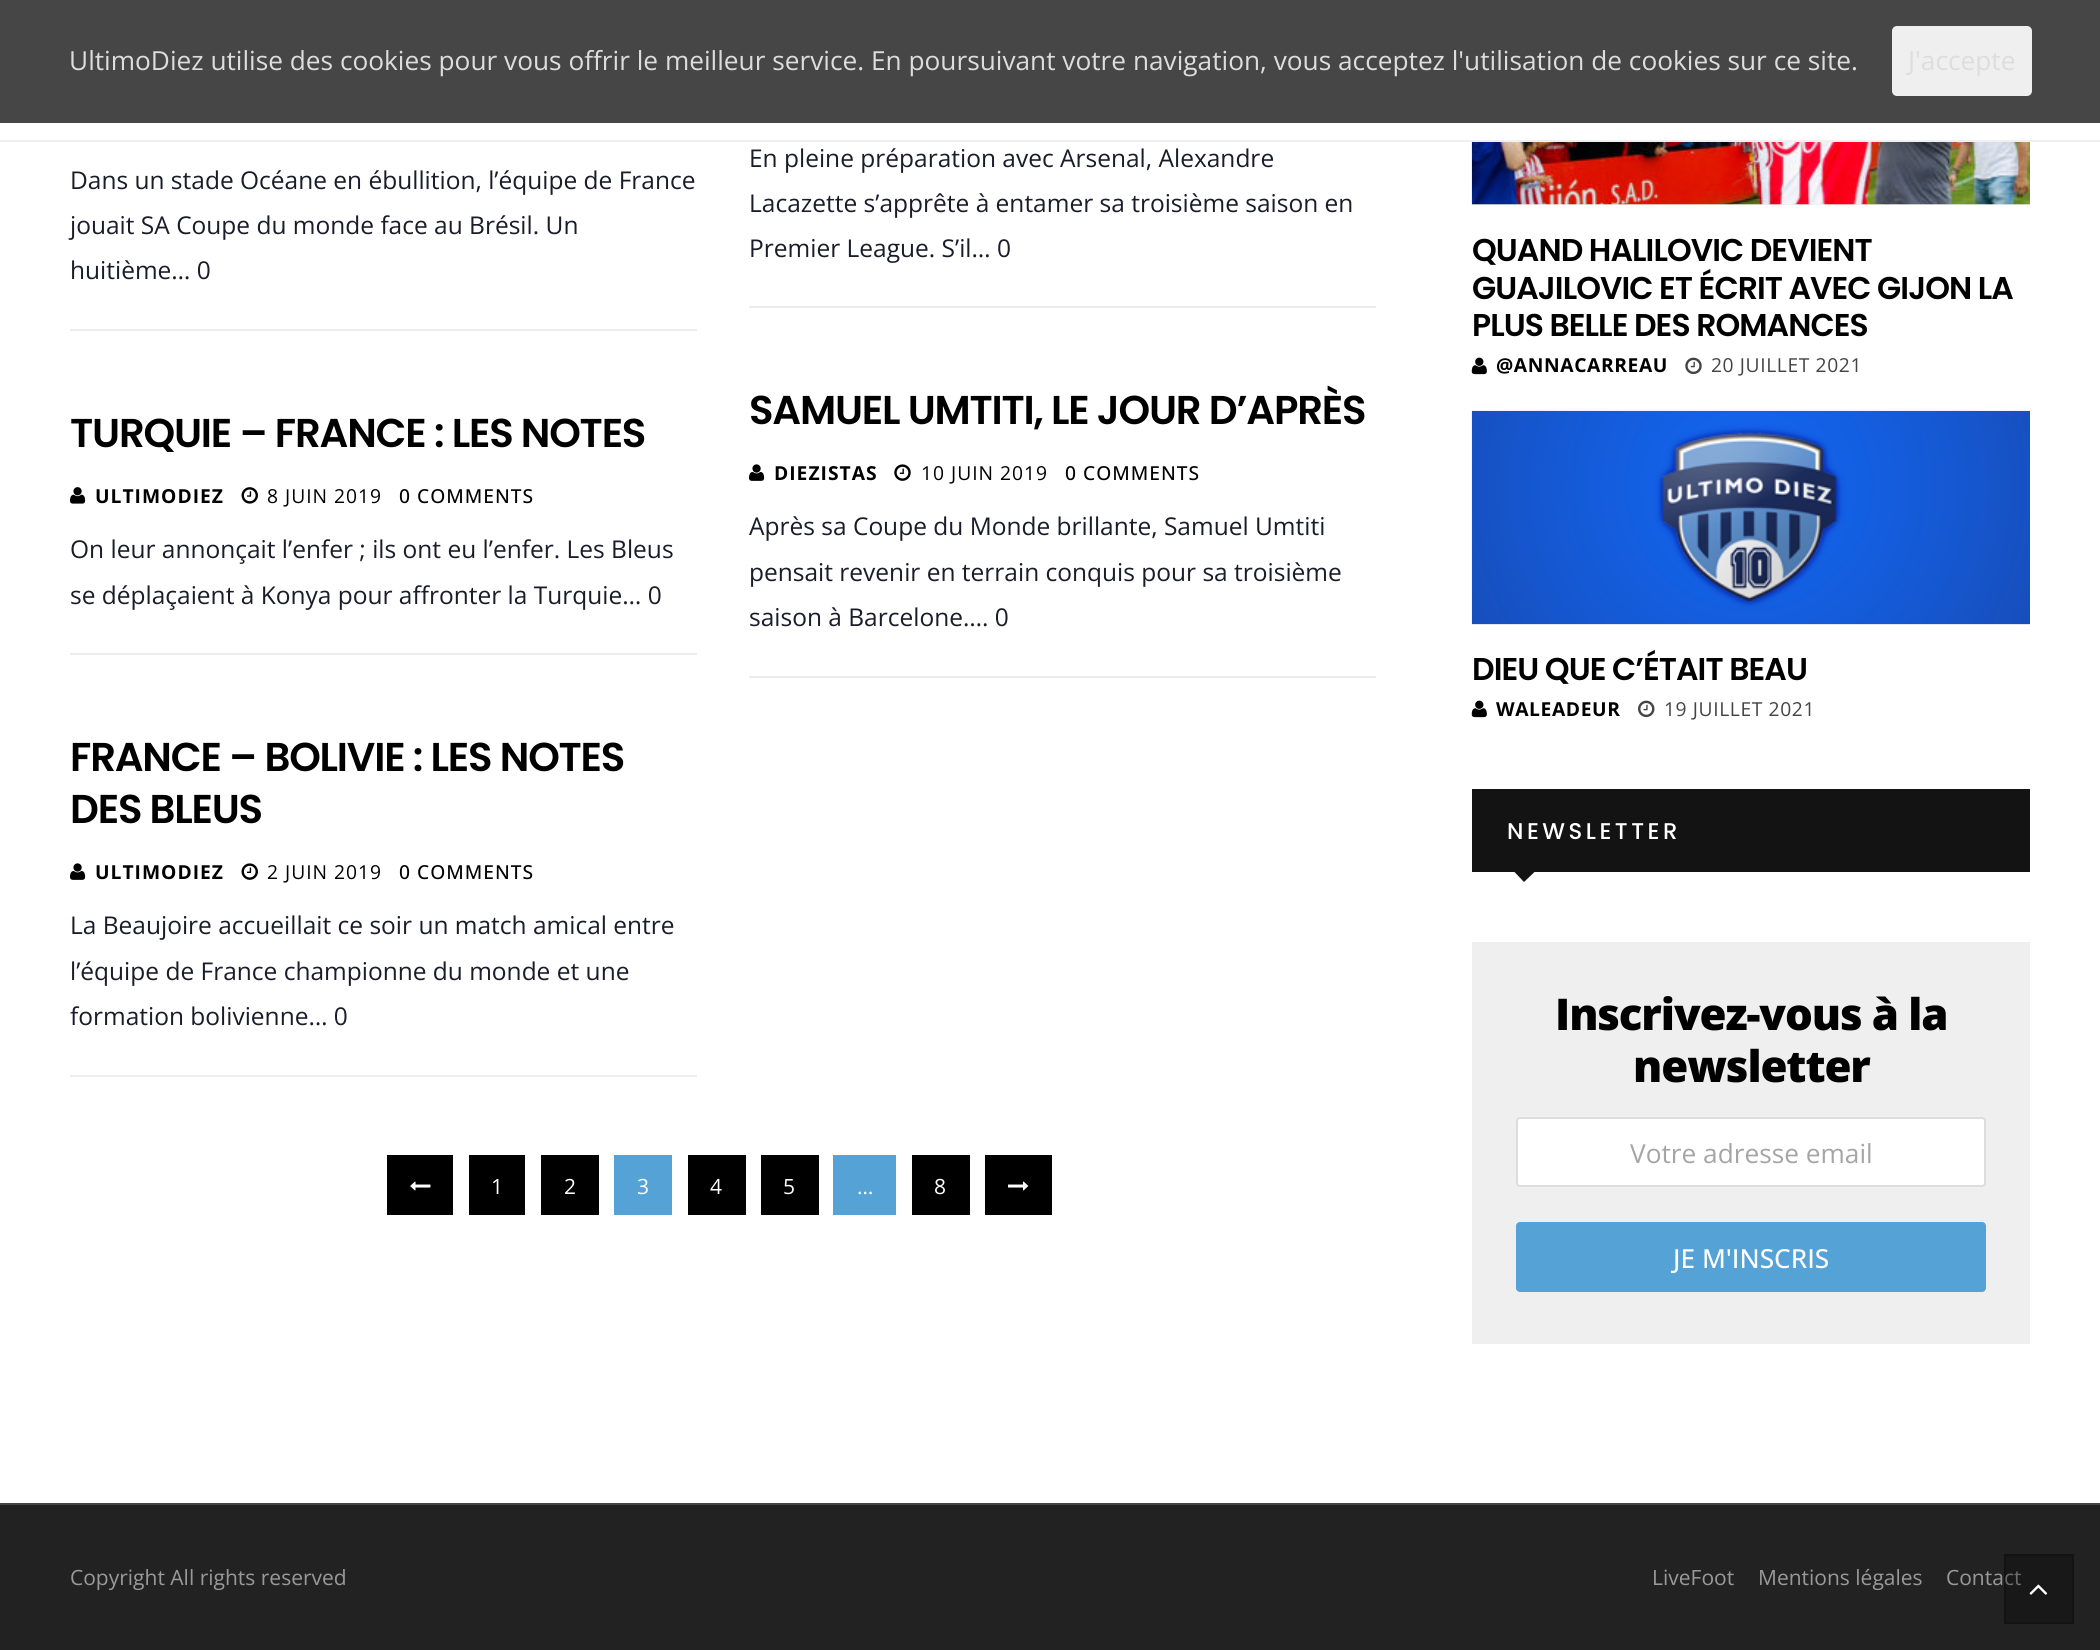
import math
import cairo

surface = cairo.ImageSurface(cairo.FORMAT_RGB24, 2100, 1650)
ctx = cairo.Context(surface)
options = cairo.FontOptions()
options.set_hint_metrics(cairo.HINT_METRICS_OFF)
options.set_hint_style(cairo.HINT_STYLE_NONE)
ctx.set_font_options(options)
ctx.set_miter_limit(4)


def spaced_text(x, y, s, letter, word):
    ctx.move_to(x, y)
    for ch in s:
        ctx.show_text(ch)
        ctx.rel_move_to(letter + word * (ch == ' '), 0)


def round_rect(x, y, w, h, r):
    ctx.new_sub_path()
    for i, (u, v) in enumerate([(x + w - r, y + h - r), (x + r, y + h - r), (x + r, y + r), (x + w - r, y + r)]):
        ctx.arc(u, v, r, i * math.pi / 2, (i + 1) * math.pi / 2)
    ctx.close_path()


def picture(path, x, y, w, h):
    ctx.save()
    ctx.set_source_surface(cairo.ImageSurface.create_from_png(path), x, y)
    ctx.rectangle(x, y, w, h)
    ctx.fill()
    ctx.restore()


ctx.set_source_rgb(1, 1, 1)
ctx.paint()
ctx.set_source_rgb(0.275, 0.275, 0.275)
ctx.rectangle(0, 0, 2100, 123)
ctx.fill()
ctx.select_font_face("Open Sans")
ctx.set_font_size(26.25)
ctx.set_source_rgb(0.867, 0.867, 0.867)
ctx.move_to(69, 70)
ctx.show_text("UltimoDiez utilise des cookies pour vous offrir le meilleur service. En poursuivant votre navigation, vous acceptez l'utilisation de cookies sur ce site.")
ctx.set_source_rgb(0.937, 0.937, 0.937)
round_rect(1892, 26, 140, 70, 5)
ctx.fill()
ctx.set_source_rgb(0.867, 0.867, 0.867)
ctx.move_to(1908, 70)
ctx.show_text("J'accepte")
ctx.set_source_rgb(0.941, 0.941, 0.941)
ctx.rectangle(0, 140, 2100, 2)
ctx.fill()
ctx.set_source_rgb(0.929, 0.929, 0.929)
ctx.rectangle(70, 329, 627, 2)
ctx.fill()
ctx.set_font_size(24.5)
ctx.set_source_rgb(0.106, 0.11, 0.165)
ctx.move_to(70, 189)
ctx.show_text("Dans un stade Océane en ébullition, l’équipe de France")
ctx.move_to(70, 234)
ctx.show_text("jouait SA Coupe du monde face au Brésil. Un")
ctx.move_to(70, 279)
ctx.show_text("huitième… 0")
ctx.set_source_rgb(0.929, 0.929, 0.929)
ctx.rectangle(749, 306, 627, 2)
ctx.fill()
ctx.set_source_rgb(0.106, 0.11, 0.165)
ctx.move_to(749, 167)
ctx.show_text("En pleine préparation avec Arsenal, Alexandre")
ctx.move_to(749, 212)
ctx.show_text("Lacazette s’apprête à entamer sa troisième saison en")
ctx.move_to(749, 257)
ctx.show_text("Premier League. S’il… 0")
ctx.select_font_face("Poppins SemiBold")
ctx.set_font_size(40.25)
ctx.set_source_rgb(0, 0, 0)
spaced_text(70, 447, "TURQUIE – FRANCE : LES NOTES", -1.2, 0)
picture("img1.png", 70, 487, 16, 17)
ctx.select_font_face("Open Sans", cairo.FONT_SLANT_NORMAL, cairo.FONT_WEIGHT_BOLD)
ctx.set_font_size(19.25)
spaced_text(95, 503, "ULTIMODIEZ", 1, 0)
picture("img2.png", 241, 487, 17, 17)
ctx.select_font_face("Open Sans")
spaced_text(267, 503, "8 JUIN 2019", 1, 0)
ctx.select_font_face("Open Sans Medium")
spaced_text(399, 503, "0 COMMENTS", 1, 0)
ctx.set_source_rgb(0.929, 0.929, 0.929)
ctx.rectangle(70, 653, 627, 2)
ctx.fill()
ctx.select_font_face("Open Sans")
ctx.set_font_size(24.5)
ctx.set_source_rgb(0.106, 0.11, 0.165)
ctx.move_to(70, 558)
ctx.show_text("On leur annonçait l’enfer ; ils ont eu l’enfer. Les Bleus")
ctx.move_to(70, 604)
ctx.show_text("se déplaçaient à Konya pour affronter la Turquie… 0")
ctx.select_font_face("Poppins SemiBold")
ctx.set_font_size(40.25)
ctx.set_source_rgb(0, 0, 0)
spaced_text(749, 424, "SAMUEL UMTITI, LE JOUR D’APRÈS", -1.2, 0)
picture("img3.png", 749, 464, 16, 17)
ctx.select_font_face("Open Sans", cairo.FONT_SLANT_NORMAL, cairo.FONT_WEIGHT_BOLD)
ctx.set_font_size(19.25)
spaced_text(774, 480, "DIEZISTAS", 1, 0)
picture("img4.png", 894, 464, 17, 17)
ctx.select_font_face("Open Sans")
spaced_text(921, 480, "10 JUIN 2019", 1, 0)
ctx.select_font_face("Open Sans Medium")
spaced_text(1065, 480, "0 COMMENTS", 1, 0)
ctx.set_source_rgb(0.929, 0.929, 0.929)
ctx.rectangle(749, 676, 627, 2)
ctx.fill()
ctx.select_font_face("Open Sans")
ctx.set_font_size(24.5)
ctx.set_source_rgb(0.106, 0.11, 0.165)
ctx.move_to(749, 535)
ctx.show_text("Après sa Coupe du Monde brillante, Samuel Umtiti")
ctx.move_to(749, 581)
ctx.show_text("pensait revenir en terrain conquis pour sa troisième")
ctx.move_to(749, 626)
ctx.show_text("saison à Barcelone…. 0")
ctx.select_font_face("Poppins SemiBold")
ctx.set_font_size(40.25)
ctx.set_source_rgb(0, 0, 0)
spaced_text(70, 771, "FRANCE – BOLIVIE : LES NOTES", -1.2, 0)
spaced_text(70, 823, "DES BLEUS", -1.2, 0)
picture("img5.png", 70, 863, 16, 17)
ctx.select_font_face("Open Sans", cairo.FONT_SLANT_NORMAL, cairo.FONT_WEIGHT_BOLD)
ctx.set_font_size(19.25)
spaced_text(95, 879, "ULTIMODIEZ", 1, 0)
picture("img6.png", 241, 863, 17, 17)
ctx.select_font_face("Open Sans")
spaced_text(267, 879, "2 JUIN 2019", 1, 0)
ctx.select_font_face("Open Sans Medium")
spaced_text(399, 879, "0 COMMENTS", 1, 0)
ctx.set_source_rgb(0.929, 0.929, 0.929)
ctx.rectangle(70, 1075, 627, 2)
ctx.fill()
ctx.select_font_face("Open Sans")
ctx.set_font_size(24.5)
ctx.set_source_rgb(0.106, 0.11, 0.165)
ctx.move_to(70, 934)
ctx.show_text("La Beaujoire accueillait ce soir un match amical entre")
ctx.move_to(70, 980)
ctx.show_text("l’équipe de France championne du monde et une")
ctx.move_to(70, 1025)
ctx.show_text("formation bolivienne… 0")
ctx.set_source_rgb(0, 0, 0)
ctx.rectangle(387, 1155, 66, 60)
ctx.fill()
picture("img7.png", 410, 1181, 21, 10)
ctx.rectangle(469, 1155, 56, 60)
ctx.fill()
ctx.set_font_size(21)
ctx.set_source_rgb(1, 1, 1)
ctx.move_to(491, 1194)
ctx.show_text("1")
ctx.set_source_rgb(0, 0, 0)
ctx.rectangle(541, 1155, 58, 60)
ctx.fill()
ctx.set_source_rgb(1, 1, 1)
ctx.move_to(564, 1194)
ctx.show_text("2")
ctx.set_source_rgb(0.333, 0.635, 0.843)
ctx.rectangle(614, 1155, 58, 60)
ctx.fill()
ctx.set_source_rgb(1, 1, 1)
ctx.move_to(637, 1194)
ctx.show_text("3")
ctx.set_source_rgb(0, 0, 0)
ctx.rectangle(688, 1155, 58, 60)
ctx.fill()
ctx.set_source_rgb(1, 1, 1)
ctx.move_to(710, 1194)
ctx.show_text("4")
ctx.set_source_rgb(0, 0, 0)
ctx.rectangle(761, 1155, 58, 60)
ctx.fill()
ctx.set_source_rgb(1, 1, 1)
ctx.move_to(783, 1194)
ctx.show_text("5")
ctx.set_source_rgb(0.333, 0.635, 0.843)
ctx.rectangle(833, 1155, 63, 60)
ctx.fill()
ctx.set_source_rgb(1, 1, 1)
ctx.move_to(857, 1194)
ctx.show_text("…")
ctx.set_source_rgb(0, 0, 0)
ctx.rectangle(912, 1155, 58, 60)
ctx.fill()
ctx.set_source_rgb(1, 1, 1)
ctx.move_to(934, 1194)
ctx.show_text("8")
ctx.set_source_rgb(0, 0, 0)
ctx.rectangle(985, 1155, 67, 60)
ctx.fill()
picture("img8.png", 1008, 1181, 21, 10)
ctx.set_source_rgb(0.933, 0.933, 0.933)
ctx.rectangle(1472, 204, 558, 1)
ctx.fill()
picture("img9.png", 1471, 142, 559, 63)
ctx.select_font_face("Poppins SemiBold")
ctx.set_font_size(31.5)
ctx.set_source_rgb(0, 0, 0)
spaced_text(1472, 261, "QUAND HALILOVIC DEVIENT", -0.95, 0)
spaced_text(1472, 299, "GUAJILOVIC ET ÉCRIT AVEC GIJON LA", -0.95, 0)
spaced_text(1472, 336, "PLUS BELLE DES ROMANCES", -0.95, 0)
picture("img10.png", 1471, 357, 16, 18)
ctx.select_font_face("Open Sans", cairo.FONT_SLANT_NORMAL, cairo.FONT_WEIGHT_BOLD)
ctx.set_font_size(19.25)
spaced_text(1496, 372, "@ANNACARREAU", 0.6, 0)
picture("img11.png", 1685, 357, 17, 18)
ctx.select_font_face("Open Sans")
ctx.set_source_rgb(0.267, 0.267, 0.267)
spaced_text(1711, 372, "20 JUILLET 2021", 0.6, 0)
ctx.set_source_rgb(0.933, 0.933, 0.933)
ctx.rectangle(1472, 624, 558, 1)
ctx.fill()
picture("img12.png", 1471, 410, 559, 215)
ctx.select_font_face("Poppins SemiBold")
ctx.set_font_size(31.5)
ctx.set_source_rgb(0, 0, 0)
spaced_text(1472, 680, "DIEU QUE C’ÉTAIT BEAU", -0.95, 0)
picture("img10.png", 1471, 700, 16, 18)
ctx.select_font_face("Open Sans", cairo.FONT_SLANT_NORMAL, cairo.FONT_WEIGHT_BOLD)
ctx.set_font_size(19.25)
spaced_text(1496, 716, "WALEADEUR", 0.6, 0)
picture("img13.png", 1638, 700, 17, 18)
ctx.select_font_face("Open Sans")
ctx.set_source_rgb(0.267, 0.267, 0.267)
spaced_text(1664, 716, "19 JUILLET 2021", 0.6, 0)
ctx.set_source_rgb(0.075, 0.075, 0.078)
ctx.rectangle(1472, 789, 558, 83)
ctx.fill()
ctx.select_font_face("Poppins Medium")
ctx.set_font_size(22.75)
ctx.set_source_rgb(1, 1, 1)
spaced_text(1507, 839, "NEWSLETTER", 3.5, 0)
ctx.set_source_rgb(0.075, 0.075, 0.078)
ctx.new_path()
ctx.move_to(1514, 871.5)
ctx.line_to(1535, 871.5)
ctx.line_to(1524, 882)
ctx.close_path()
ctx.fill()
ctx.set_source_rgb(0.937, 0.937, 0.937)
ctx.rectangle(1472, 942, 558, 402)
ctx.fill()
ctx.select_font_face("Open Sans ExtraBold")
ctx.set_font_size(43.75)
ctx.set_source_rgb(0, 0, 0)
spaced_text(1555, 1030, "Inscrivez-vous à la", -1.1, 0)
spaced_text(1633, 1082, "newsletter", -1.1, 0)
ctx.set_source_rgb(1, 1, 1)
round_rect(1517, 1118, 468, 68, 3)
ctx.fill_preserve()
ctx.set_source_rgb(0.871, 0.867, 0.867)
ctx.stroke()
ctx.select_font_face("Open Sans")
ctx.set_font_size(26.25)
ctx.set_source_rgb(0.647, 0.647, 0.647)
ctx.move_to(1630, 1163)
ctx.show_text("Votre adresse email")
ctx.set_source_rgb(0.333, 0.635, 0.843)
round_rect(1516, 1222, 470, 70, 4)
ctx.fill()
ctx.select_font_face("Open Sans Medium")
ctx.set_source_rgb(1, 1, 1)
ctx.move_to(1673, 1268)
ctx.show_text("JE M'INSCRIS")
ctx.set_source_rgb(0.133, 0.133, 0.133)
ctx.rectangle(0, 1505, 2100, 145)
ctx.fill()
ctx.set_source_rgb(0.267, 0.267, 0.267)
ctx.rectangle(0, 1503, 2100, 2)
ctx.fill()
ctx.select_font_face("Open Sans")
ctx.set_font_size(21)
ctx.set_source_rgb(0.6, 0.6, 0.6)
ctx.move_to(70, 1585)
ctx.show_text("Copyright All rights reserved")
ctx.move_to(1652, 1585)
ctx.show_text("LiveFoot")
ctx.move_to(1758, 1585)
ctx.show_text("Mentions légales")
ctx.move_to(1946, 1585)
ctx.show_text("Contact")
ctx.set_source_rgba(0, 0, 0, 0.3)
ctx.rectangle(2004, 1554, 70, 70)
ctx.fill()
ctx.rectangle(2005, 1555, 68, 68)
ctx.set_source_rgba(0, 0, 0, 0.2)
ctx.stroke()
picture("img14.png", 2029, 1584, 19, 11)
surface.write_to_png("page.png")
